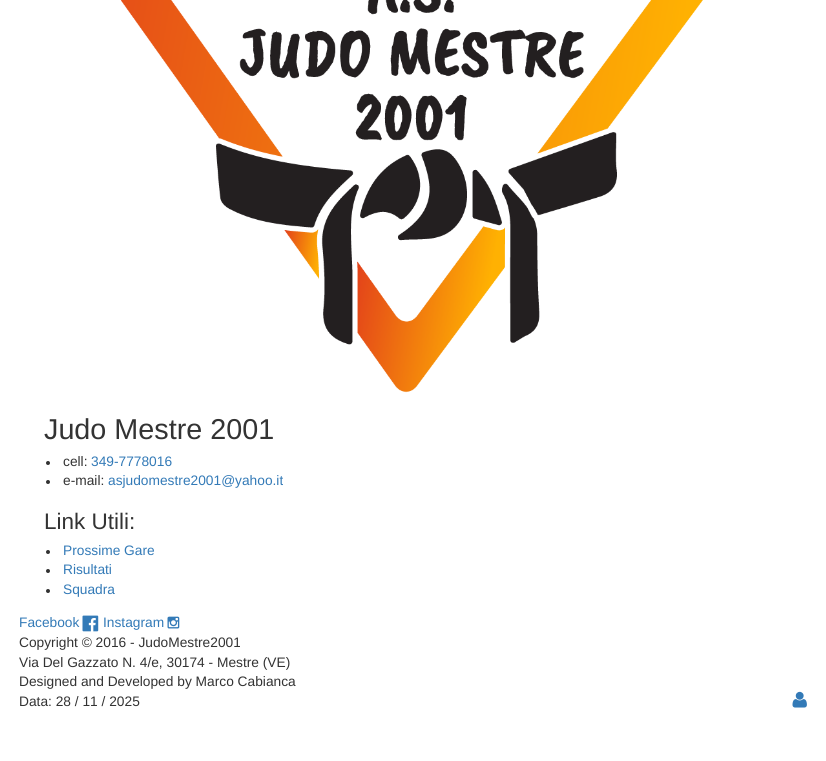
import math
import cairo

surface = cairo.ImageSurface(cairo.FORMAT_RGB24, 826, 761)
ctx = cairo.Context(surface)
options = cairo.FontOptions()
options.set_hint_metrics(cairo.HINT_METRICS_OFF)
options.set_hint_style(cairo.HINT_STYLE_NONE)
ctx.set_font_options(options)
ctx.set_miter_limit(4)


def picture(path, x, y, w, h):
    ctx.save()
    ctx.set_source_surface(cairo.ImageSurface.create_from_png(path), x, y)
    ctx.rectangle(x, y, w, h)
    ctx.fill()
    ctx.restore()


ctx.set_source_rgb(1, 1, 1)
ctx.paint()
picture("img1.png", 121, 0, 582, 393)
ctx.select_font_face("Liberation Sans")
ctx.set_font_size(28.75)
ctx.set_source_rgb(0.2, 0.2, 0.2)
ctx.move_to(44, 439)
ctx.show_text("Judo Mestre 2001")
ctx.new_path()
ctx.arc(48, 463, 2, 0, 2 * math.pi)
ctx.fill()
ctx.set_font_size(13.75)
ctx.move_to(63, 466)
ctx.show_text("cell:")
ctx.set_source_rgb(0.2, 0.478, 0.718)
ctx.move_to(91, 466)
ctx.show_text("349-7778016")
ctx.set_source_rgb(0.2, 0.2, 0.2)
ctx.new_path()
ctx.arc(48, 482, 2, 0, 2 * math.pi)
ctx.fill()
ctx.move_to(63, 485)
ctx.show_text("e-mail:")
ctx.set_source_rgb(0.2, 0.478, 0.718)
ctx.move_to(108, 485)
ctx.show_text("asjudomestre2001@yahoo.it")
ctx.set_font_size(22.5)
ctx.set_source_rgb(0.2, 0.2, 0.2)
ctx.move_to(44, 529)
ctx.show_text("Link Utili:")
ctx.new_path()
ctx.arc(48, 552, 2, 0, 2 * math.pi)
ctx.fill()
ctx.set_font_size(13.75)
ctx.set_source_rgb(0.2, 0.478, 0.718)
ctx.move_to(63, 555)
ctx.show_text("Prossime Gare")
ctx.set_source_rgb(0.2, 0.2, 0.2)
ctx.new_path()
ctx.arc(48, 571, 2, 0, 2 * math.pi)
ctx.fill()
ctx.set_source_rgb(0.2, 0.478, 0.718)
ctx.move_to(63, 574)
ctx.show_text("Risultati")
ctx.set_source_rgb(0.2, 0.2, 0.2)
ctx.new_path()
ctx.arc(48, 591, 2, 0, 2 * math.pi)
ctx.fill()
ctx.set_source_rgb(0.2, 0.478, 0.718)
ctx.move_to(63, 594)
ctx.show_text("Squadra")
ctx.move_to(19, 627)
ctx.show_text("Facebook")
picture("img2.png", 82, 615, 17, 17)
ctx.move_to(103, 627)
ctx.show_text("Instagram")
picture("img3.png", 167, 616, 13, 13)
ctx.set_source_rgb(0.2, 0.2, 0.2)
ctx.move_to(19, 647)
ctx.show_text("Copyright © 2016 - JudoMestre2001")
ctx.move_to(19, 667)
ctx.show_text("Via Del Gazzato N. 4/e, 30174 - Mestre (VE)")
ctx.move_to(19, 686)
ctx.show_text("Designed and Developed by Marco Cabianca")
ctx.move_to(19, 706)
ctx.show_text("Data: 28 / 11 / 2025")
picture("img4.png", 792, 691, 15, 17)
surface.write_to_png("page.png")
